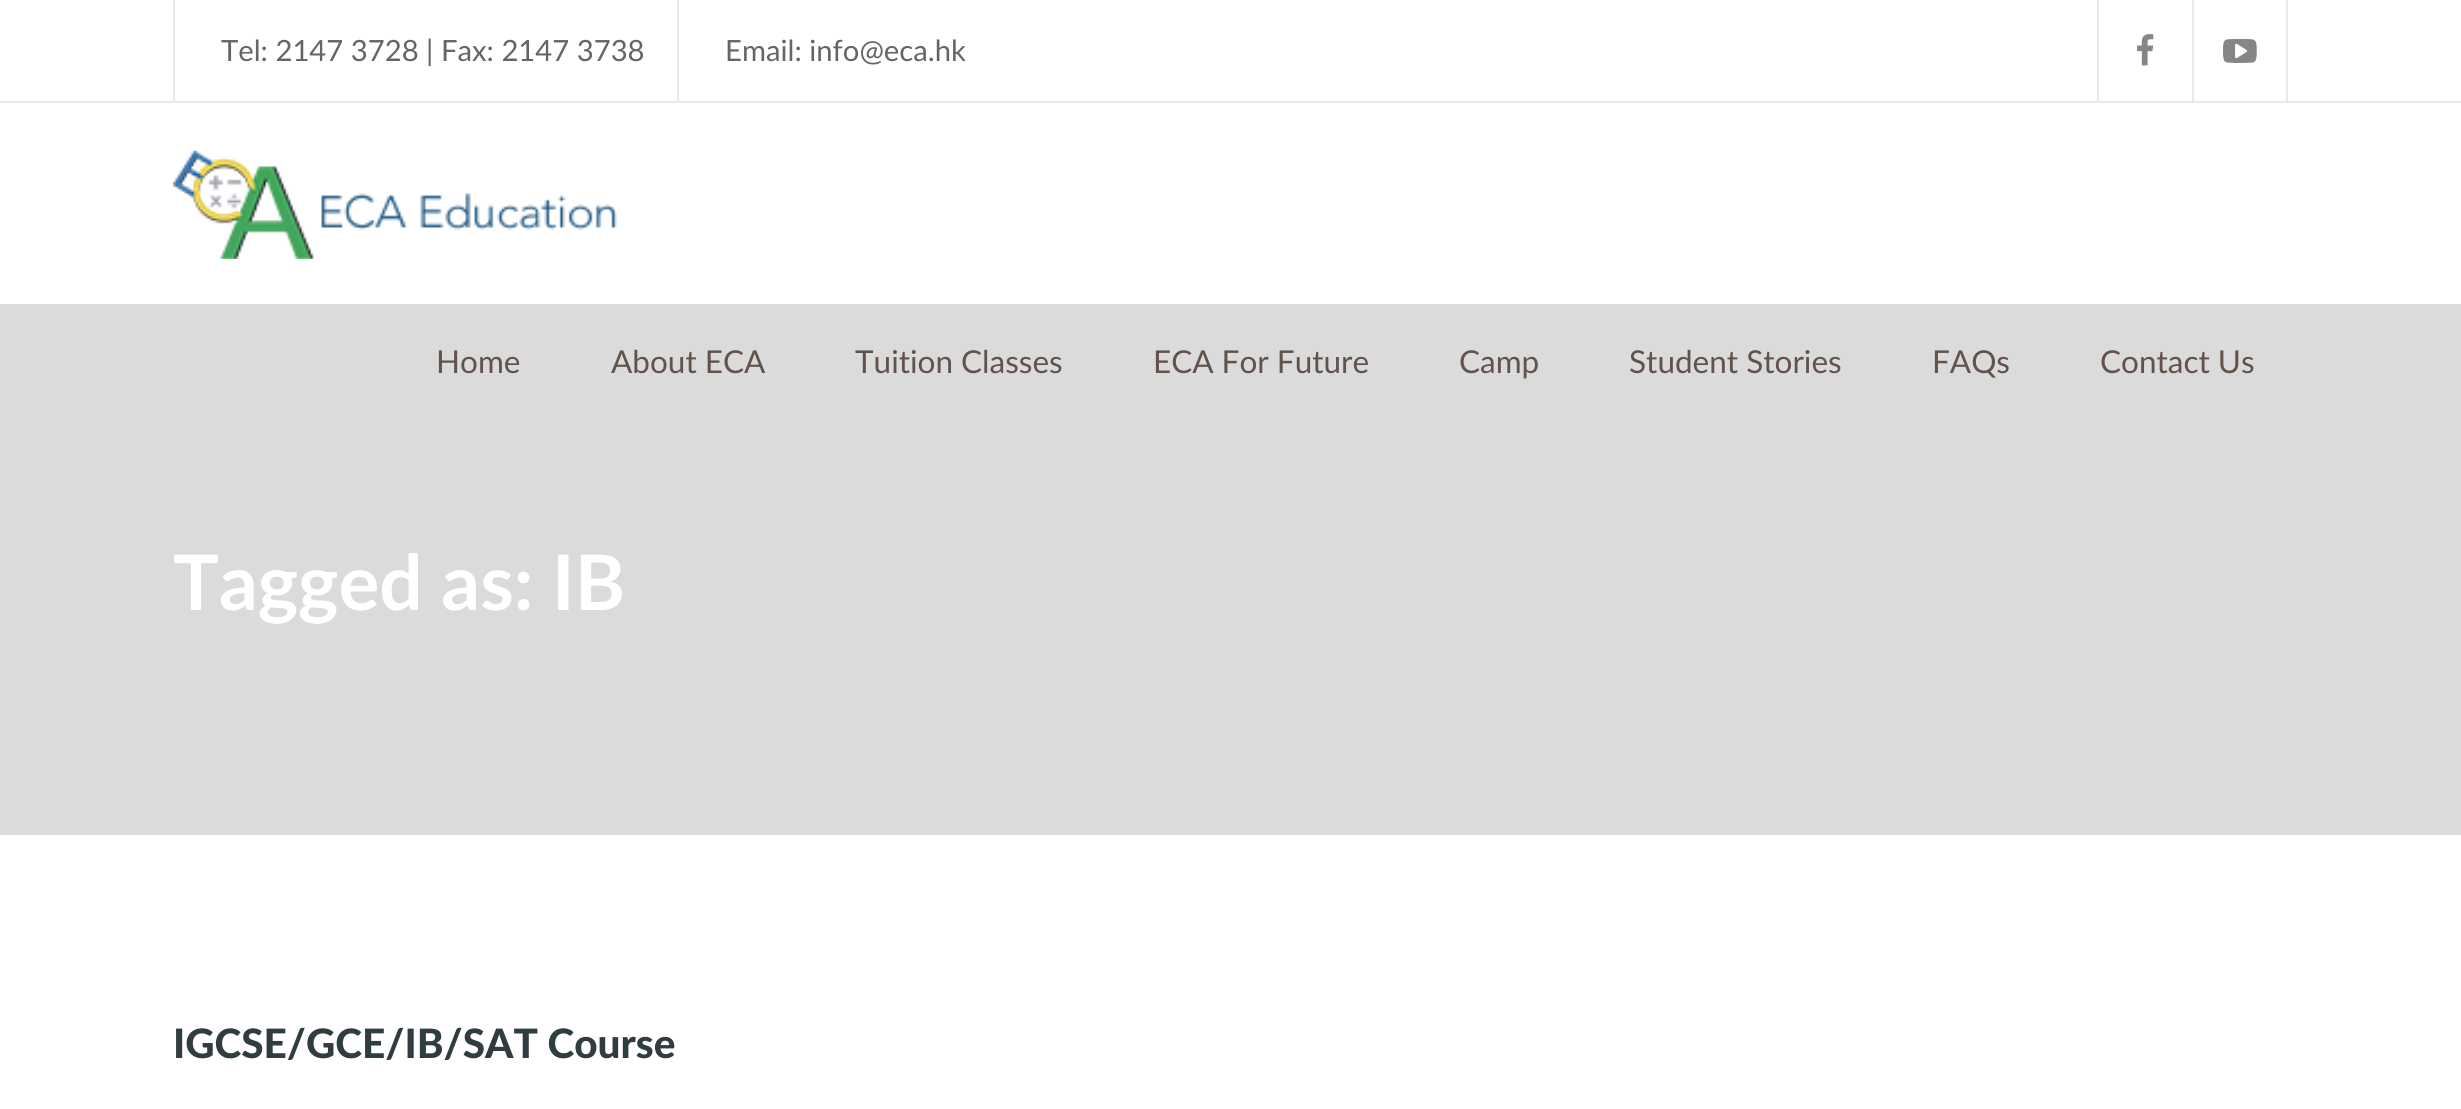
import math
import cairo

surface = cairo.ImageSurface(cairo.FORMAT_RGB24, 2461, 1109)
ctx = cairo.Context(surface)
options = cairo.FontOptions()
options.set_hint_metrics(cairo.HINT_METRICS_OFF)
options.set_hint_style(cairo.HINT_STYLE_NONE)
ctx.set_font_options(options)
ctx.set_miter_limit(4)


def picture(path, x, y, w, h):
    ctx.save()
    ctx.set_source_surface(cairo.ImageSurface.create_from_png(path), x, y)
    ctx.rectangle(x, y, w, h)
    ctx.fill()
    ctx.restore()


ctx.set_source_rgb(1, 1, 1)
ctx.paint()
ctx.set_source_rgb(0.914, 0.914, 0.914)
ctx.rectangle(0, 101, 2461, 2)
ctx.fill()
ctx.rectangle(173, 0, 2, 101)
ctx.fill()
ctx.select_font_face("Lato")
ctx.set_font_size(29.25)
ctx.set_source_rgb(0.4, 0.396, 0.396)
ctx.move_to(221, 61)
ctx.show_text("Tel: 2147 3728 | Fax: 2147 3738")
ctx.set_source_rgb(0.914, 0.914, 0.914)
ctx.rectangle(677, 0, 2, 101)
ctx.fill()
ctx.set_source_rgb(0.4, 0.396, 0.396)
ctx.move_to(725, 61)
ctx.show_text("Email: info@eca.hk")
ctx.set_source_rgb(0.914, 0.914, 0.914)
ctx.rectangle(2097, 0, 2, 101)
ctx.fill()
ctx.rectangle(2192, 0, 2, 101)
ctx.fill()
picture("img1.png", 2137, 34, 17, 32)
ctx.rectangle(2286, 0, 2, 101)
ctx.fill()
picture("img2.png", 2223, 38, 34, 25)
picture("img3.png", 173, 150, 444, 109)
ctx.set_source_rgb(0.859, 0.859, 0.859)
ctx.rectangle(0, 304, 2461, 531)
ctx.fill()
ctx.set_font_size(31.5)
ctx.set_source_rgb(0.384, 0.322, 0.298)
ctx.move_to(436, 373)
ctx.show_text("Home")
ctx.move_to(611, 373)
ctx.show_text("About ECA")
ctx.move_to(855, 373)
ctx.show_text("Tuition Classes")
ctx.move_to(1153, 373)
ctx.show_text("ECA For Future")
ctx.move_to(1459, 373)
ctx.show_text("Camp")
ctx.move_to(1629, 373)
ctx.show_text("Student Stories")
ctx.move_to(1932, 373)
ctx.show_text("FAQs")
ctx.move_to(2100, 373)
ctx.show_text("Contact Us")
ctx.select_font_face("Lato", cairo.FONT_SLANT_NORMAL, cairo.FONT_WEIGHT_BOLD)
ctx.set_font_size(76.5)
ctx.set_source_rgb(1, 1, 1)
ctx.move_to(173, 610)
ctx.show_text("Tagged as: IB")
ctx.select_font_face("Lato Black")
ctx.set_font_size(40.5)
ctx.set_source_rgb(0.184, 0.235, 0.251)
ctx.move_to(173, 1058)
ctx.show_text("IGCSE/GCE/IB/SAT Course")
surface.write_to_png("page.png")
